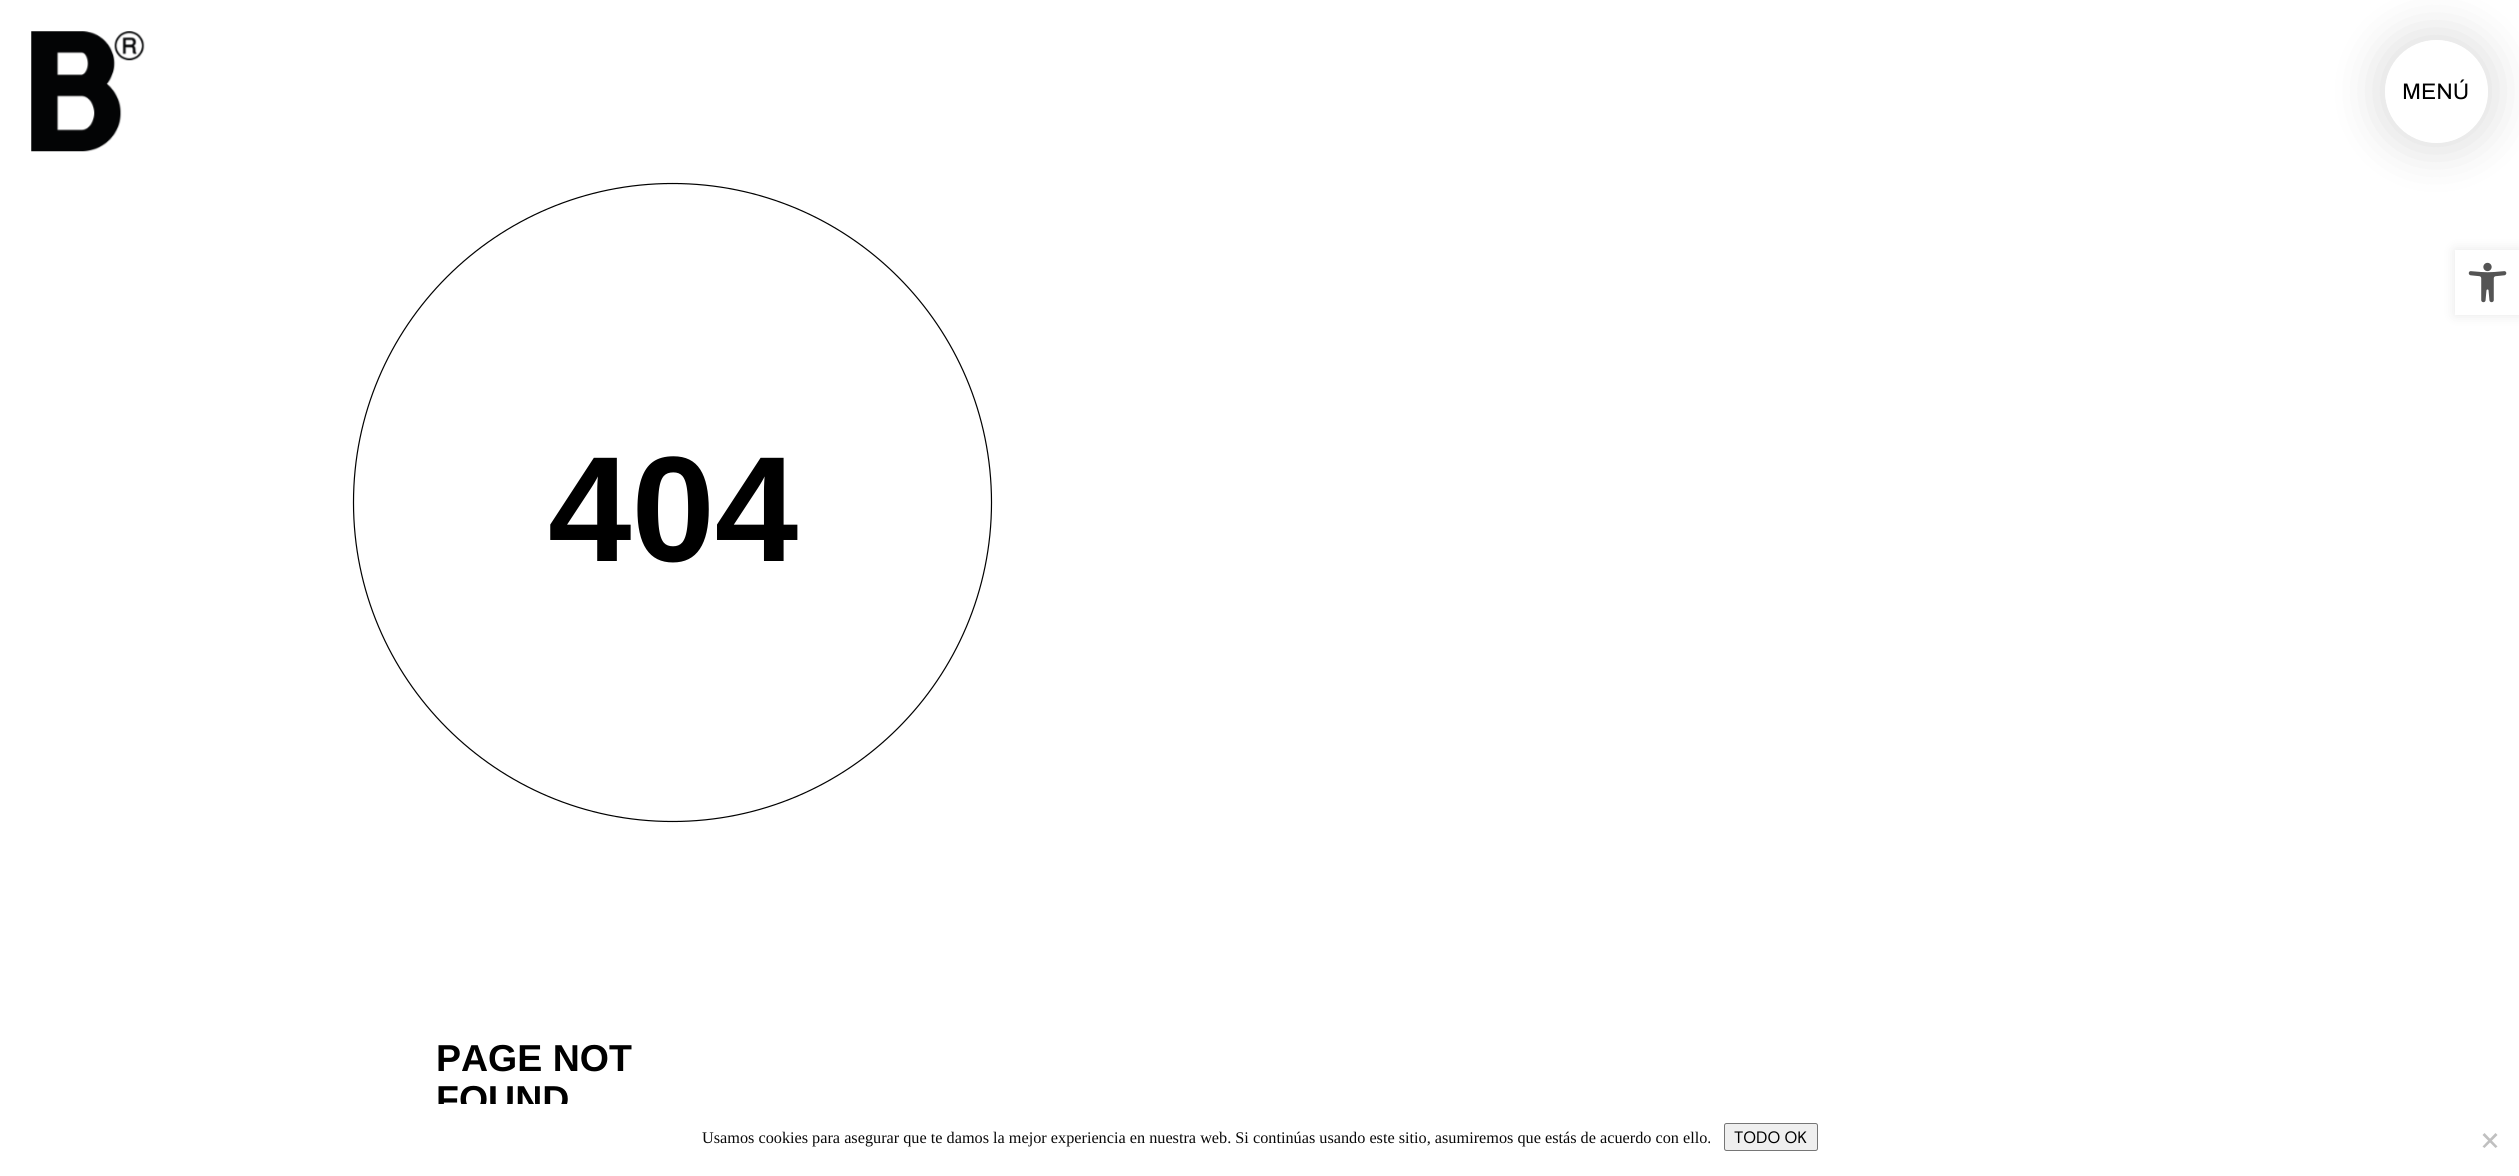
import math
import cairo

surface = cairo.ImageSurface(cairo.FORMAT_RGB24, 2519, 1176)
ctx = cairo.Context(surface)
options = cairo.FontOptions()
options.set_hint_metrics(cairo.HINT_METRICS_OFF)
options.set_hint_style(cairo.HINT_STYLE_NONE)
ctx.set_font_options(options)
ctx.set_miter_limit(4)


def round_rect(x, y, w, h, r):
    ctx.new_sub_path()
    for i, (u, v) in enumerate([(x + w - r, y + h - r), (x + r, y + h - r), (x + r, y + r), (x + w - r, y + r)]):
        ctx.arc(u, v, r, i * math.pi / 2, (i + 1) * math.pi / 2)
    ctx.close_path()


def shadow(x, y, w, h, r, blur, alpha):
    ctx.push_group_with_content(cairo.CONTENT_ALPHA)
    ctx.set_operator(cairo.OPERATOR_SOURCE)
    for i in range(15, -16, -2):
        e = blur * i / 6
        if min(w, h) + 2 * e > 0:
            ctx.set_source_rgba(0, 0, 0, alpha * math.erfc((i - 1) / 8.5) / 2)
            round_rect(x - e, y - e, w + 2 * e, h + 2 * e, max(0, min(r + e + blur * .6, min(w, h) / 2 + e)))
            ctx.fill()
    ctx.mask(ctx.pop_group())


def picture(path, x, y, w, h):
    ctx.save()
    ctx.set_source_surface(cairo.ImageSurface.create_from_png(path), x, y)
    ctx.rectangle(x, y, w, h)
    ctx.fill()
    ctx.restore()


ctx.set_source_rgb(1, 1, 1)
ctx.paint()
picture("img1.png", 31, 31, 114, 121)
ctx.save()
ctx.set_fill_rule(cairo.FILL_RULE_EVEN_ODD)
ctx.new_path()
ctx.move_to(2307, 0)
ctx.line_to(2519, 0)
ctx.line_to(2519, 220)
ctx.line_to(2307, 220)
ctx.close_path()
ctx.move_to(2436.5, 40)
ctx.curve_to(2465, 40, 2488, 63, 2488, 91.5)
ctx.curve_to(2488, 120, 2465, 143, 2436.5, 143)
ctx.curve_to(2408, 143, 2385, 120, 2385, 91.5)
ctx.curve_to(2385, 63, 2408, 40, 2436.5, 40)
ctx.close_path()
ctx.clip()
ctx.set_source_rgb(0, 0, 0)
shadow(2376, 31, 120, 120, 60, 22.5, 0.13)
ctx.restore()
ctx.select_font_face("Archivo")
ctx.set_font_size(22.5)
ctx.set_source_rgb(0, 0, 0)
ctx.move_to(2402, 99)
ctx.show_text("MENÚ")
ctx.save()
ctx.set_fill_rule(cairo.FILL_RULE_EVEN_ODD)
ctx.new_path()
ctx.move_to(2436, 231)
ctx.line_to(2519, 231)
ctx.line_to(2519, 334)
ctx.line_to(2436, 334)
ctx.close_path()
ctx.move_to(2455, 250)
ctx.line_to(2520, 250)
ctx.line_to(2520, 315)
ctx.line_to(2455, 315)
ctx.close_path()
ctx.clip()
ctx.set_source_rgb(0, 0, 0)
shadow(2455, 250, 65, 65, 0, 6, 0.1)
ctx.restore()
picture("img2.png", 2468, 262, 39, 41)
ctx.arc(672.5, 502.5, 319, 0, 2 * math.pi)
ctx.set_line_width(1.2)
ctx.stroke()
ctx.select_font_face("Liberation Sans", cairo.FONT_SLANT_NORMAL, cairo.FONT_WEIGHT_BOLD)
ctx.set_font_size(150)
ctx.move_to(548, 561)
ctx.show_text("404")
ctx.set_font_size(37.5)
ctx.move_to(436, 1071)
ctx.show_text("PAGE NOT")
ctx.move_to(436, 1112)
ctx.show_text("FOUND")
ctx.set_source_rgb(1, 1, 1)
ctx.rectangle(438, 1104, 130, 9)
ctx.fill()
ctx.select_font_face("Liberation Serif")
ctx.set_font_size(16.25)
ctx.set_source_rgb(0.039, 0.039, 0.039)
ctx.move_to(702, 1143)
ctx.show_text("Usamos cookies para asegurar que te damos la mejor experiencia en nuestra web. Si continúas usando este sitio, asumiremos que estás de acuerdo con ello.")
ctx.set_source_rgb(0.937, 0.937, 0.937)
round_rect(1724.5, 1123.5, 93, 27, 2)
ctx.fill_preserve()
ctx.set_source_rgb(0.463, 0.463, 0.463)
ctx.set_line_width(1)
ctx.stroke()
ctx.select_font_face("DM Sans")
ctx.set_font_size(16.5)
ctx.set_source_rgb(0, 0, 0)
ctx.move_to(1734, 1143)
ctx.show_text("TODO OK")
ctx.set_source_rgb(0.753, 0.753, 0.753)
ctx.new_path()
ctx.move_to(2495.5, 1133)
ctx.line_to(2497.5, 1135)
ctx.line_to(2484.5, 1148)
ctx.line_to(2482.5, 1146.5)
ctx.close_path()
ctx.fill()
ctx.new_path()
ctx.move_to(2482.5, 1135)
ctx.line_to(2484.5, 1133)
ctx.line_to(2497.5, 1146.5)
ctx.line_to(2495.5, 1148)
ctx.close_path()
ctx.fill()
surface.write_to_png("page.png")
